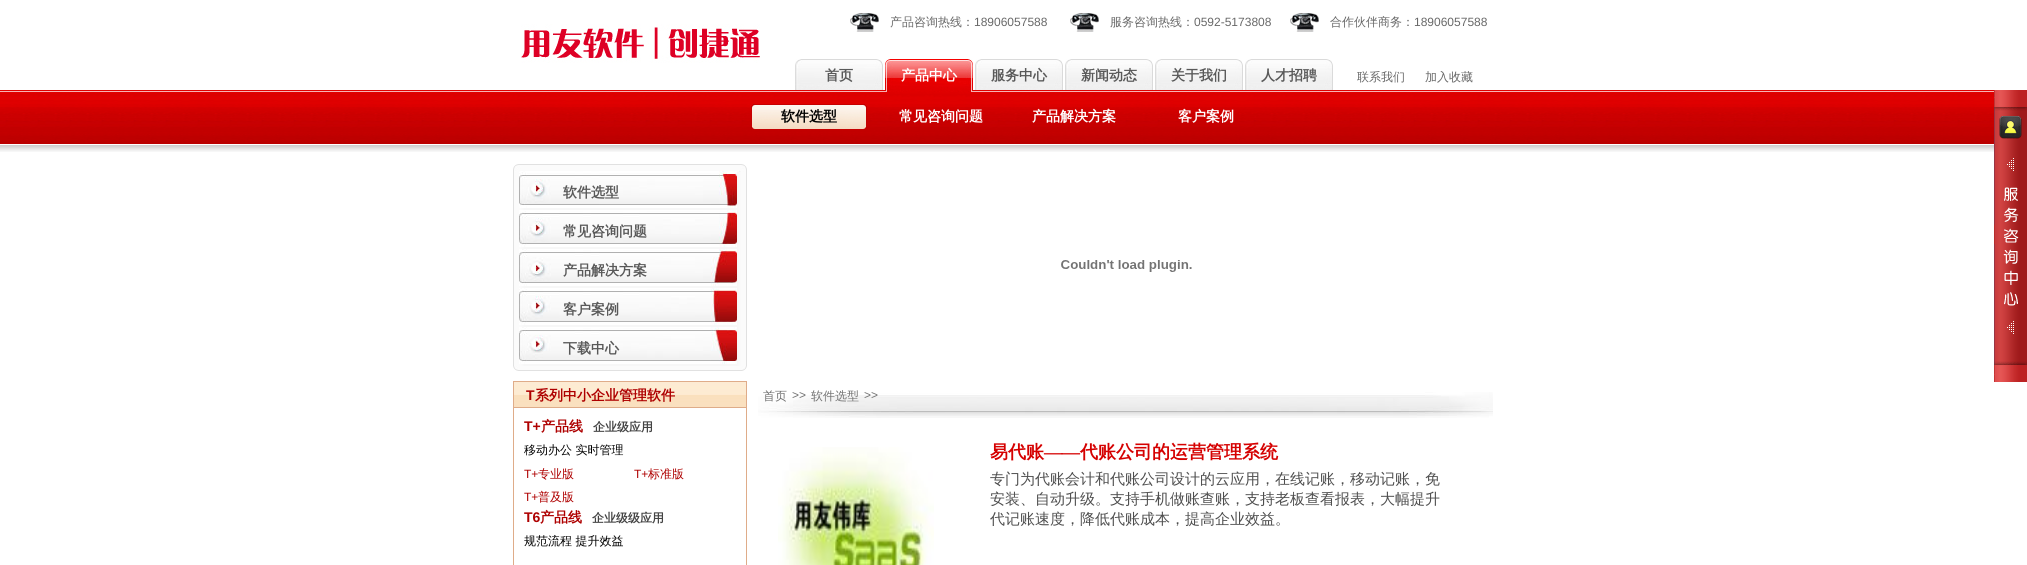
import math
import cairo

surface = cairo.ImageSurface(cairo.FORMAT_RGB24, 2027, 565)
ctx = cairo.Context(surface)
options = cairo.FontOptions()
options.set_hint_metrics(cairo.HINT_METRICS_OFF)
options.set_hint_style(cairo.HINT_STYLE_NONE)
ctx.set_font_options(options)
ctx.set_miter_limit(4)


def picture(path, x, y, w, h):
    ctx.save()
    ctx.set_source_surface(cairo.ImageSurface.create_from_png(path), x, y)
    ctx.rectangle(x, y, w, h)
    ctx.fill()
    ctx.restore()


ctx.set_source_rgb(1, 1, 1)
ctx.paint()
picture("img1.png", 0, 90, 1994, 62)
picture("img2.png", 521, 24, 239, 39)
picture("img3.png", 850, 13, 29, 19)
ctx.select_font_face("WenQuanYi Zen Hei Medium")
ctx.set_font_size(12)
ctx.set_source_rgb(0.408, 0.408, 0.408)
ctx.move_to(890, 26)
ctx.show_text("产品咨询热线：")
ctx.select_font_face("Liberation Sans")
ctx.move_to(974, 26)
ctx.show_text("18906057588")
picture("img3.png", 1070, 13, 29, 19)
ctx.select_font_face("WenQuanYi Zen Hei Medium")
ctx.move_to(1110, 26)
ctx.show_text("服务咨询热线：")
ctx.select_font_face("Liberation Sans")
ctx.move_to(1194, 26)
ctx.show_text("0592-5173808")
picture("img3.png", 1290, 13, 29, 19)
ctx.select_font_face("WenQuanYi Zen Hei Medium")
ctx.move_to(1330, 26)
ctx.show_text("合作伙伴商务：")
ctx.select_font_face("Liberation Sans")
ctx.move_to(1414, 26)
ctx.show_text("18906057588")
picture("img4.png", 795, 59, 88, 31)
ctx.select_font_face("WenQuanYi Zen Hei", cairo.FONT_SLANT_NORMAL, cairo.FONT_WEIGHT_BOLD)
ctx.set_font_size(14)
ctx.set_source_rgb(0.349, 0.349, 0.349)
ctx.move_to(825, 80)
ctx.show_text("首页")
picture("img5.png", 885, 59, 88, 33)
ctx.set_source_rgb(1, 1, 1)
ctx.move_to(901, 80)
ctx.show_text("产品中心")
picture("img4.png", 975, 59, 88, 31)
ctx.set_source_rgb(0.349, 0.349, 0.349)
ctx.move_to(991, 80)
ctx.show_text("服务中心")
picture("img4.png", 1065, 59, 88, 31)
ctx.move_to(1081, 80)
ctx.show_text("新闻动态")
picture("img4.png", 1155, 59, 88, 31)
ctx.move_to(1171, 80)
ctx.show_text("关于我们")
picture("img4.png", 1245, 59, 88, 31)
ctx.move_to(1261, 80)
ctx.show_text("人才招聘")
ctx.select_font_face("WenQuanYi Zen Hei Medium")
ctx.set_font_size(12)
ctx.set_source_rgb(0.408, 0.408, 0.408)
ctx.move_to(1357, 81)
ctx.show_text("联系我们")
ctx.move_to(1425, 81)
ctx.show_text("加入收藏")
picture("img6.png", 751, 104, 116, 26)
ctx.select_font_face("WenQuanYi Zen Hei", cairo.FONT_SLANT_NORMAL, cairo.FONT_WEIGHT_BOLD)
ctx.set_font_size(14)
ctx.set_source_rgb(0, 0, 0)
ctx.move_to(781, 121)
ctx.show_text("软件选型")
ctx.set_source_rgb(1, 1, 1)
ctx.move_to(899, 121)
ctx.show_text("常见咨询问题")
ctx.move_to(1032, 121)
ctx.show_text("产品解决方案")
ctx.move_to(1178, 121)
ctx.show_text("客户案例")
picture("img7.png", 1994, 90, 33, 292)
picture("img8.png", 513, 172, 234, 194)
picture("img9.png", 513, 164, 234, 8)
picture("img10.png", 513, 366, 234, 5)
picture("img11.png", 519, 171, 218, 37)
ctx.set_source_rgb(0.349, 0.349, 0.349)
ctx.move_to(563, 197)
ctx.show_text("软件选型")
picture("img12.png", 519, 210, 218, 37)
ctx.move_to(563, 236)
ctx.show_text("常见咨询问题")
picture("img13.png", 519, 249, 218, 37)
ctx.move_to(563, 275)
ctx.show_text("产品解决方案")
picture("img14.png", 519, 288, 218, 37)
ctx.move_to(563, 314)
ctx.show_text("客户案例")
picture("img15.png", 519, 327, 218, 37)
ctx.move_to(563, 353)
ctx.show_text("下载中心")
ctx.rectangle(513.5, 381.5, 233, 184)
ctx.set_source_rgb(0.875, 0.675, 0.537)
ctx.set_line_width(1)
ctx.stroke()
picture("img16.png", 514, 382, 232, 26)
ctx.select_font_face("Liberation Sans", cairo.FONT_SLANT_NORMAL, cairo.FONT_WEIGHT_BOLD)
ctx.set_source_rgb(0.682, 0, 0)
ctx.move_to(526, 400)
ctx.show_text("T")
ctx.select_font_face("WenQuanYi Zen Hei", cairo.FONT_SLANT_NORMAL, cairo.FONT_WEIGHT_BOLD)
ctx.move_to(535, 400)
ctx.show_text("系列中小企业管理软件")
ctx.select_font_face("Liberation Sans", cairo.FONT_SLANT_NORMAL, cairo.FONT_WEIGHT_BOLD)
ctx.move_to(524, 431)
ctx.show_text("T+")
ctx.select_font_face("WenQuanYi Zen Hei", cairo.FONT_SLANT_NORMAL, cairo.FONT_WEIGHT_BOLD)
ctx.move_to(541, 431)
ctx.show_text("产品线")
ctx.set_font_size(12)
ctx.set_source_rgb(0.263, 0.263, 0.263)
ctx.move_to(593, 431)
ctx.show_text("企业级应用")
ctx.select_font_face("WenQuanYi Zen Hei Medium")
ctx.set_source_rgb(0, 0, 0)
ctx.move_to(524, 454)
ctx.show_text("移动办公 实时管理")
ctx.select_font_face("Liberation Sans")
ctx.set_source_rgb(0.682, 0, 0)
ctx.move_to(524, 478)
ctx.show_text("T+")
ctx.select_font_face("WenQuanYi Zen Hei Medium")
ctx.move_to(538, 478)
ctx.show_text("专业版")
ctx.select_font_face("Liberation Sans")
ctx.move_to(634, 478)
ctx.show_text("T+")
ctx.select_font_face("WenQuanYi Zen Hei Medium")
ctx.move_to(648, 478)
ctx.show_text("标准版")
ctx.select_font_face("Liberation Sans")
ctx.move_to(524, 501)
ctx.show_text("T+")
ctx.select_font_face("WenQuanYi Zen Hei Medium")
ctx.move_to(538, 501)
ctx.show_text("普及版")
ctx.select_font_face("Liberation Sans", cairo.FONT_SLANT_NORMAL, cairo.FONT_WEIGHT_BOLD)
ctx.set_font_size(14)
ctx.move_to(524, 522)
ctx.show_text("T6")
ctx.select_font_face("WenQuanYi Zen Hei", cairo.FONT_SLANT_NORMAL, cairo.FONT_WEIGHT_BOLD)
ctx.move_to(540, 522)
ctx.show_text("产品线")
ctx.set_font_size(12)
ctx.set_source_rgb(0.263, 0.263, 0.263)
ctx.move_to(592, 522)
ctx.show_text("企业级级应用")
ctx.select_font_face("WenQuanYi Zen Hei Medium")
ctx.set_source_rgb(0, 0, 0)
ctx.move_to(524, 545)
ctx.show_text("规范流程 提升效益")
picture("img17.png", 1061, 260, 131, 12)
picture("img18.png", 758, 392, 735, 26)
ctx.set_source_rgb(0.443, 0.443, 0.443)
ctx.move_to(763, 400)
ctx.show_text("首页")
ctx.select_font_face("Liberation Sans")
ctx.move_to(792, 399)
ctx.show_text(">>")
ctx.select_font_face("WenQuanYi Zen Hei Medium")
ctx.move_to(811, 400)
ctx.show_text("软件选型")
ctx.select_font_face("Liberation Sans")
ctx.move_to(864, 399)
ctx.show_text(">>")
picture("img19.png", 778, 447, 156, 118)
ctx.select_font_face("WenQuanYi Zen Hei", cairo.FONT_SLANT_NORMAL, cairo.FONT_WEIGHT_BOLD)
ctx.set_font_size(18)
ctx.set_source_rgb(0.835, 0, 0)
ctx.move_to(990, 458)
ctx.show_text("易代账")
ctx.select_font_face("Liberation Serif", cairo.FONT_SLANT_NORMAL, cairo.FONT_WEIGHT_BOLD)
ctx.move_to(1044, 458)
ctx.show_text("——")
ctx.select_font_face("WenQuanYi Zen Hei", cairo.FONT_SLANT_NORMAL, cairo.FONT_WEIGHT_BOLD)
ctx.move_to(1080, 458)
ctx.show_text("代账公司的运营管理系统")
ctx.select_font_face("WenQuanYi Zen Hei Medium")
ctx.set_font_size(15)
ctx.set_source_rgb(0.306, 0.306, 0.306)
ctx.move_to(990, 484)
ctx.show_text("专门为代账会计和代账公司设计的云应用，在线记账，移动记账，免")
ctx.move_to(990, 504)
ctx.show_text("安装、自动升级。支持手机做账查账，支持老板查看报表，大幅提升")
ctx.move_to(990, 524)
ctx.show_text("代记账速度，降低代账成本，提高企业效益。")
surface.write_to_png("page.png")
